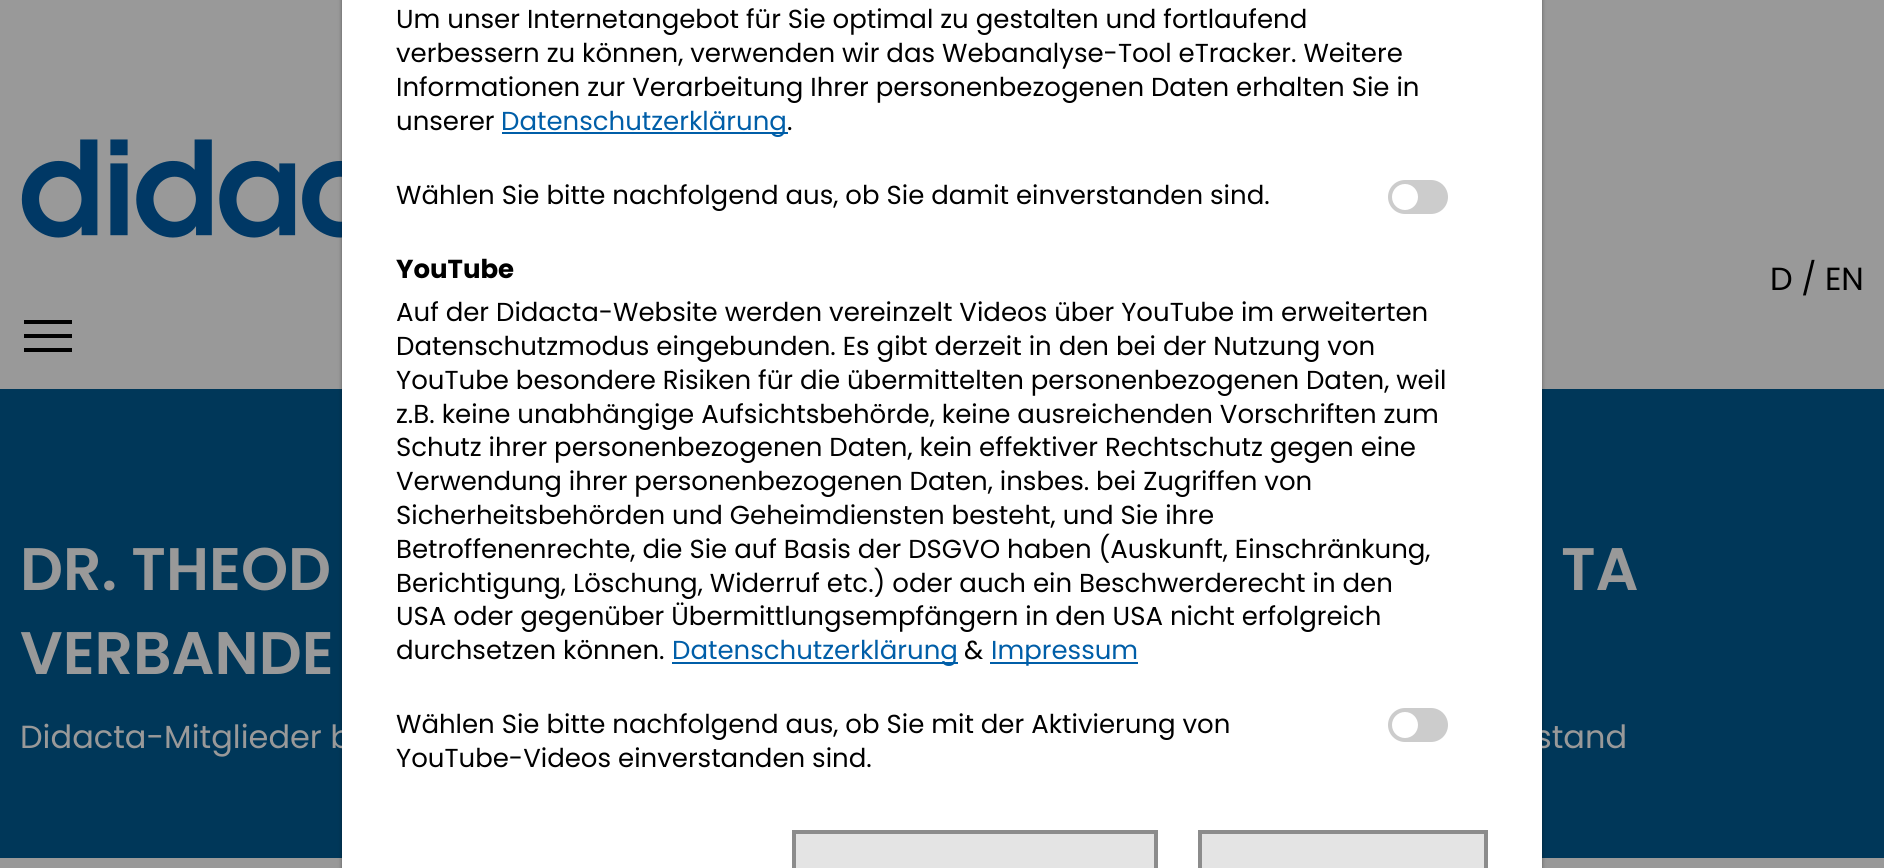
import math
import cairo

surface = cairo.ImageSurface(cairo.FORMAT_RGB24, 1884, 868)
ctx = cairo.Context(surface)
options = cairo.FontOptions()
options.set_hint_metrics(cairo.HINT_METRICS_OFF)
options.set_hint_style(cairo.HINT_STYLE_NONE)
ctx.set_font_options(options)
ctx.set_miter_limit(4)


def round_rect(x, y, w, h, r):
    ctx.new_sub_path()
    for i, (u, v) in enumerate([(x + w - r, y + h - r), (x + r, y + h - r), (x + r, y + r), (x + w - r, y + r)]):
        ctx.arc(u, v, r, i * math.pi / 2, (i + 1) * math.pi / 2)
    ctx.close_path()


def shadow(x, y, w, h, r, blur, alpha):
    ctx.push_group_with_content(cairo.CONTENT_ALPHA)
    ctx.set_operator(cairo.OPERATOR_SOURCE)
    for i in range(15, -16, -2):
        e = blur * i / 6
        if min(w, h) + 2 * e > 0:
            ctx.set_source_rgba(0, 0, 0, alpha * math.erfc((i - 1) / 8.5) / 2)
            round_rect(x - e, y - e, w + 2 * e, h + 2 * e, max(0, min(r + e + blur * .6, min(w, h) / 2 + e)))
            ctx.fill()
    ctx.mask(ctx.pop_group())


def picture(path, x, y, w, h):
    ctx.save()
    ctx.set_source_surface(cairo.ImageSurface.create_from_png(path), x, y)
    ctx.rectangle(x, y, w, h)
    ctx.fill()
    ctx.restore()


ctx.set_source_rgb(0.6, 0.6, 0.6)
ctx.paint()
picture("img1.png", 21, 139, 321, 99)
ctx.set_source_rgb(0, 0.216, 0.349)
ctx.rectangle(0, 389, 1884, 469)
ctx.fill()
ctx.set_source_rgb(0, 0, 0)
shadow(342, -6, 1200, 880, 0, 2, 0.4)
ctx.select_font_face("Poppins")
ctx.set_font_size(32)
ctx.set_source_rgb(0.6, 0.6, 0.6)
ctx.move_to(20, 748)
ctx.show_text("Didacta-Mitglieder b")
ctx.move_to(1535, 748)
ctx.show_text("stand")
ctx.set_source_rgb(1, 1, 1)
ctx.rectangle(342, 0, 1200, 868)
ctx.fill()
ctx.set_font_size(26)
ctx.set_source_rgb(0, 0, 0)
ctx.move_to(396, 28)
ctx.show_text("Um unser Internetangebot für Sie optimal zu gestalten und fortlaufend")
ctx.move_to(396, 62)
ctx.show_text("verbessern zu können, verwenden wir das Webanalyse-Tool eTracker. Weitere")
ctx.move_to(396, 96)
ctx.show_text("Informationen zur Verarbeitung Ihrer personenbezogenen Daten erhalten Sie in")
ctx.move_to(396, 130)
ctx.show_text("unserer")
ctx.set_source_rgb(0, 0.369, 0.659)
ctx.rectangle(502, 132, 286, 2)
ctx.fill()
ctx.move_to(501, 130)
ctx.show_text("Datenschutzerklärung")
ctx.set_source_rgb(0, 0, 0)
ctx.move_to(787, 130)
ctx.show_text(".")
ctx.move_to(396, 204)
ctx.show_text("Wählen Sie bitte nachfolgend aus, ob Sie damit einverstanden sind.")
ctx.set_source_rgb(0.8, 0.8, 0.8)
round_rect(1388, 180, 60, 34, 17)
ctx.fill()
ctx.set_source_rgb(1, 1, 1)
ctx.arc(1405, 197, 13, 0, 2 * math.pi)
ctx.fill()
ctx.select_font_face("Poppins", cairo.FONT_SLANT_NORMAL, cairo.FONT_WEIGHT_BOLD)
ctx.set_source_rgb(0, 0, 0)
ctx.move_to(396, 278)
ctx.show_text("YouTube")
ctx.select_font_face("Poppins")
ctx.move_to(396, 321)
ctx.show_text("Auf der Didacta-Website werden vereinzelt Videos über YouTube im erweiterten")
ctx.move_to(396, 355)
ctx.show_text("Datenschutzmodus eingebunden. Es gibt derzeit in den bei der Nutzung von")
ctx.move_to(396, 389)
ctx.show_text("YouTube besondere Risiken für die übermittelten personenbezogenen Daten, weil")
ctx.move_to(396, 423)
ctx.show_text("z.B. keine unabhängige Aufsichtsbehörde, keine ausreichenden Vorschriften zum")
ctx.move_to(396, 456)
ctx.show_text("Schutz ihrer personenbezogenen Daten, kein effektiver Rechtschutz gegen eine")
ctx.move_to(396, 490)
ctx.show_text("Verwendung ihrer personenbezogenen Daten, insbes. bei Zugriffen von")
ctx.move_to(396, 524)
ctx.show_text("Sicherheitsbehörden und Geheimdiensten besteht, und Sie ihre")
ctx.move_to(396, 558)
ctx.show_text("Betroffenenrechte, die Sie auf Basis der DSGVO haben (Auskunft, Einschränkung,")
ctx.move_to(396, 592)
ctx.show_text("Berichtigung, Löschung, Widerruf etc.) oder auch ein Beschwerderecht in den")
ctx.move_to(396, 625)
ctx.show_text("USA oder gegenüber Übermittlungsempfängern in den USA nicht erfolgreich")
ctx.move_to(396, 659)
ctx.show_text("durchsetzen können.")
ctx.set_source_rgb(0, 0.369, 0.659)
ctx.rectangle(672, 662, 286, 2)
ctx.fill()
ctx.move_to(672, 659)
ctx.show_text("Datenschutzerklärung")
ctx.set_source_rgb(0, 0, 0)
ctx.move_to(964, 659)
ctx.show_text("&")
ctx.set_source_rgb(0, 0.369, 0.659)
ctx.rectangle(990, 662, 148, 2)
ctx.fill()
ctx.move_to(991, 659)
ctx.show_text("Impressum")
ctx.set_source_rgb(0, 0, 0)
ctx.move_to(396, 733)
ctx.show_text("Wählen Sie bitte nachfolgend aus, ob Sie mit der Aktivierung von")
ctx.move_to(396, 767)
ctx.show_text("YouTube-Videos einverstanden sind.")
ctx.set_source_rgb(0.8, 0.8, 0.8)
round_rect(1388, 708, 60, 34, 17)
ctx.fill()
ctx.set_source_rgb(1, 1, 1)
ctx.arc(1405, 725, 13, 0, 2 * math.pi)
ctx.fill()
ctx.set_source_rgb(0.894, 0.894, 0.894)
ctx.rectangle(794, 832, 362, 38)
ctx.fill_preserve()
ctx.set_source_rgb(0.549, 0.549, 0.549)
ctx.set_line_width(4)
ctx.stroke()
ctx.set_source_rgb(0.894, 0.894, 0.894)
ctx.rectangle(1200, 832, 286, 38)
ctx.fill_preserve()
ctx.set_source_rgb(0.549, 0.549, 0.549)
ctx.stroke()
ctx.set_font_size(32)
ctx.set_source_rgb(0, 0, 0)
ctx.move_to(1770, 290)
ctx.show_text("D / EN")
ctx.rectangle(24, 334, 48, 4)
ctx.fill()
ctx.rectangle(24, 320, 48, 4)
ctx.fill()
ctx.rectangle(24, 348, 48, 4)
ctx.fill()
ctx.select_font_face("Poppins SemiBold")
ctx.set_font_size(60)
ctx.set_source_rgb(0.6, 0.6, 0.6)
ctx.move_to(20, 590)
ctx.show_text("DR. THEOD")
ctx.move_to(1561, 590)
ctx.show_text("TA")
ctx.move_to(20, 674)
ctx.show_text("VERBANDE")
surface.write_to_png("page.png")
